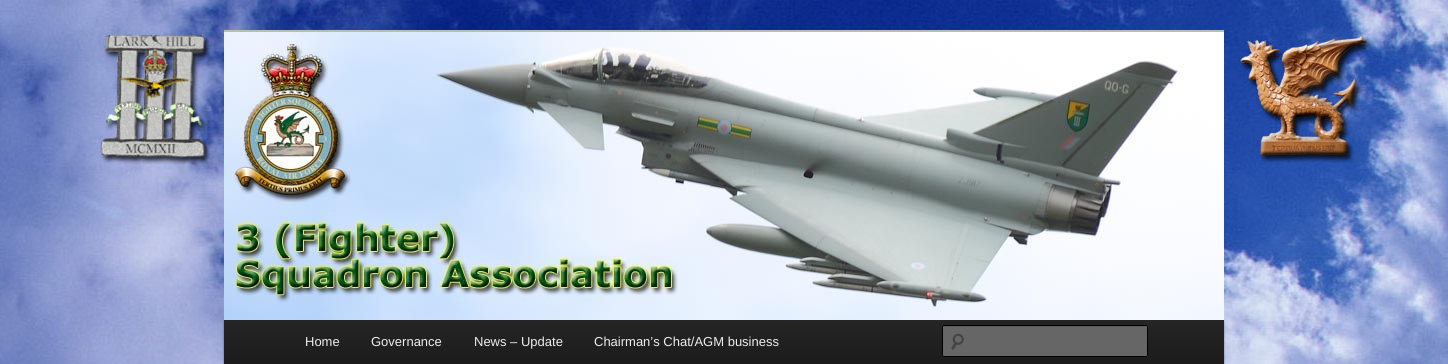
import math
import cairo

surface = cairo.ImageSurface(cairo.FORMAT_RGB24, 1448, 364)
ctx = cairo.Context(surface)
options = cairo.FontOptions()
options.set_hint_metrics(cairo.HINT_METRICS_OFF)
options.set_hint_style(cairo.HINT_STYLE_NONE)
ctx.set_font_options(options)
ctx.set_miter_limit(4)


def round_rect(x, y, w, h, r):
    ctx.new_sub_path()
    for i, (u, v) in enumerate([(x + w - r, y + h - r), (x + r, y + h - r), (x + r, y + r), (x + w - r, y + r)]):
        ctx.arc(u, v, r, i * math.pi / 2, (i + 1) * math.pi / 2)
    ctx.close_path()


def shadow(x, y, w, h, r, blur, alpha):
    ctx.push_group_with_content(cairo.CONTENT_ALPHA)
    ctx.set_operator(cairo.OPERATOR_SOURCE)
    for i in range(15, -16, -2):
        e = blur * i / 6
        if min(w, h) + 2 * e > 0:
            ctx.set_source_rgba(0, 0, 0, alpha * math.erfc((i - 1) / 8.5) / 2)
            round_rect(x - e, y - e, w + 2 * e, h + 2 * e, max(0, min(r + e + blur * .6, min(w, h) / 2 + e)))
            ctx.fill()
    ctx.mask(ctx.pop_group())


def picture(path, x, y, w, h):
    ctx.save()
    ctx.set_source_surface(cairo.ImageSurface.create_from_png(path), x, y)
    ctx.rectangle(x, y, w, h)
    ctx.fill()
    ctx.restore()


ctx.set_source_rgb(1, 1, 1)
ctx.paint()
picture("img1.png", 0, 0, 1448, 364)
ctx.set_source_rgb(0.733, 0.733, 0.733)
ctx.rectangle(224, 30, 1000, 2)
ctx.fill()
ctx.set_source_rgb(0, 0, 0)
shadow(224, 321, 1000, 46, 0, 1, 0.4)
picture("img2.png", 224, 32, 1000, 288)
gradient = cairo.LinearGradient(724, 320, 724, 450)
gradient.add_color_stop_rgba(0, 0.145, 0.145, 0.145, 1)
gradient.add_color_stop_rgba(1, 0.039, 0.039, 0.039, 1)
ctx.set_source(gradient)
ctx.rectangle(224, 320, 1000, 44)
ctx.fill()
ctx.select_font_face("Liberation Sans")
ctx.set_font_size(13)
ctx.set_source_rgb(0.933, 0.933, 0.933)
ctx.move_to(305, 346)
ctx.show_text("Home")
ctx.move_to(371, 346)
ctx.show_text("Governance")
ctx.move_to(474, 346)
ctx.show_text("News – Update")
ctx.move_to(594, 346)
ctx.show_text("Chairman’s Chat/AGM business")
ctx.set_source_rgb(0.4, 0.4, 0.4)
round_rect(942, 325, 206, 32, 2)
ctx.fill()
picture("img3.png", 951, 333, 13, 17)
ctx.set_source_rgb(0.361, 0.361, 0.361)
ctx.new_path()
ctx.move_to(944, 327)
ctx.line_to(1147, 327)
ctx.line_to(1147, 328)
ctx.line_to(1147, 326)
ctx.line_to(1146, 326)
ctx.line_to(944, 326)
ctx.curve_to(943, 326, 943, 327, 943, 328)
ctx.curve_to(943, 327, 943, 327, 944, 327)
ctx.close_path()
ctx.fill()
round_rect(942.5, 325.5, 205, 31, 1.5)
ctx.set_source_rgb(0, 0, 0)
ctx.set_line_width(1)
ctx.stroke()
surface.write_to_png("page.png")
